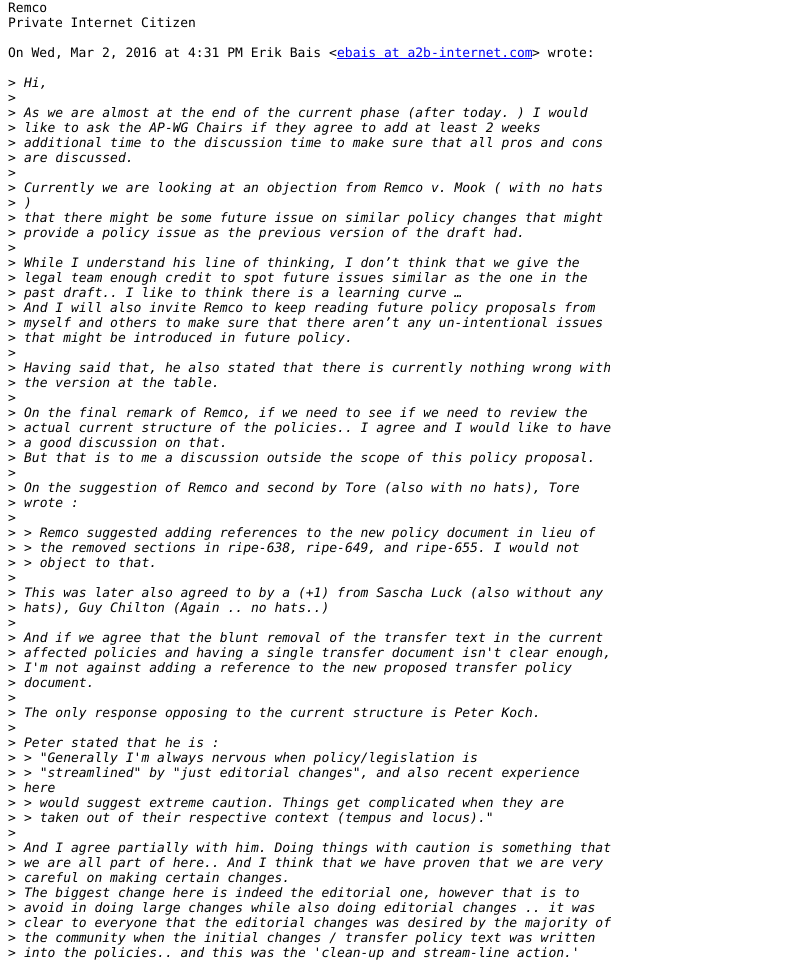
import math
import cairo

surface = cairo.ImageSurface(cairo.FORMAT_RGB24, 806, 967)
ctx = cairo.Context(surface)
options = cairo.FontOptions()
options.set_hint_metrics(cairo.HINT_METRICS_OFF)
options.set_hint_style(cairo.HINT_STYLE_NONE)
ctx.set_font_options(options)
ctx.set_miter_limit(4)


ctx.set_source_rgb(1, 1, 1)
ctx.paint()
ctx.select_font_face("DejaVu Sans Mono")
ctx.set_font_size(13)
ctx.set_source_rgb(0, 0, 0)
ctx.move_to(8, 12)
ctx.show_text("Remco")
ctx.move_to(8, 27)
ctx.show_text("Private Internet Citizen")
ctx.move_to(8, 57)
ctx.show_text("On Wed, Mar 2, 2016 at 4:31 PM Erik Bais <")
ctx.set_source_rgb(0, 0, 0.933)
ctx.move_to(337, 57)
ctx.show_text("ebais at a2b-internet.com")
ctx.rectangle(337, 58, 195, 1)
ctx.fill()
ctx.set_source_rgb(0, 0, 0)
ctx.move_to(532, 57)
ctx.show_text("> wrote:")
ctx.move_to(8, 87)
ctx.show_text(">")
ctx.select_font_face("DejaVu Sans Mono", cairo.FONT_SLANT_ITALIC)
ctx.move_to(24, 87)
ctx.show_text("Hi,")
ctx.select_font_face("DejaVu Sans Mono")
ctx.move_to(8, 102)
ctx.show_text(">")
ctx.move_to(8, 117)
ctx.show_text(">")
ctx.select_font_face("DejaVu Sans Mono", cairo.FONT_SLANT_ITALIC)
ctx.move_to(24, 117)
ctx.show_text("As we are almost at the end of the current phase (after today. ) I would")
ctx.select_font_face("DejaVu Sans Mono")
ctx.move_to(8, 132)
ctx.show_text(">")
ctx.select_font_face("DejaVu Sans Mono", cairo.FONT_SLANT_ITALIC)
ctx.move_to(24, 132)
ctx.show_text("like to ask the AP-WG Chairs if they agree to add at least 2 weeks")
ctx.select_font_face("DejaVu Sans Mono")
ctx.move_to(8, 147)
ctx.show_text(">")
ctx.select_font_face("DejaVu Sans Mono", cairo.FONT_SLANT_ITALIC)
ctx.move_to(24, 147)
ctx.show_text("additional time to the discussion time to make sure that all pros and cons")
ctx.select_font_face("DejaVu Sans Mono")
ctx.move_to(8, 162)
ctx.show_text(">")
ctx.select_font_face("DejaVu Sans Mono", cairo.FONT_SLANT_ITALIC)
ctx.move_to(24, 162)
ctx.show_text("are discussed.")
ctx.select_font_face("DejaVu Sans Mono")
ctx.move_to(8, 177)
ctx.show_text(">")
ctx.move_to(8, 192)
ctx.show_text(">")
ctx.select_font_face("DejaVu Sans Mono", cairo.FONT_SLANT_ITALIC)
ctx.move_to(24, 192)
ctx.show_text("Currently we are looking at an objection from Remco v. Mook ( with no hats")
ctx.select_font_face("DejaVu Sans Mono")
ctx.move_to(8, 207)
ctx.show_text(">")
ctx.select_font_face("DejaVu Sans Mono", cairo.FONT_SLANT_ITALIC)
ctx.move_to(24, 207)
ctx.show_text(")")
ctx.select_font_face("DejaVu Sans Mono")
ctx.move_to(8, 222)
ctx.show_text(">")
ctx.select_font_face("DejaVu Sans Mono", cairo.FONT_SLANT_ITALIC)
ctx.move_to(24, 222)
ctx.show_text("that there might be some future issue on similar policy changes that might")
ctx.select_font_face("DejaVu Sans Mono")
ctx.move_to(8, 237)
ctx.show_text(">")
ctx.select_font_face("DejaVu Sans Mono", cairo.FONT_SLANT_ITALIC)
ctx.move_to(24, 237)
ctx.show_text("provide a policy issue as the previous version of the draft had.")
ctx.select_font_face("DejaVu Sans Mono")
ctx.move_to(8, 252)
ctx.show_text(">")
ctx.move_to(8, 267)
ctx.show_text(">")
ctx.select_font_face("DejaVu Sans Mono", cairo.FONT_SLANT_ITALIC)
ctx.move_to(24, 267)
ctx.show_text("While I understand his line of thinking, I don’t think that we give the")
ctx.select_font_face("DejaVu Sans Mono")
ctx.move_to(8, 282)
ctx.show_text(">")
ctx.select_font_face("DejaVu Sans Mono", cairo.FONT_SLANT_ITALIC)
ctx.move_to(24, 282)
ctx.show_text("legal team enough credit to spot future issues similar as the one in the")
ctx.select_font_face("DejaVu Sans Mono")
ctx.move_to(8, 297)
ctx.show_text(">")
ctx.select_font_face("DejaVu Sans Mono", cairo.FONT_SLANT_ITALIC)
ctx.move_to(24, 297)
ctx.show_text("past draft.. I like to think there is a learning curve …")
ctx.select_font_face("DejaVu Sans Mono")
ctx.move_to(8, 312)
ctx.show_text(">")
ctx.select_font_face("DejaVu Sans Mono", cairo.FONT_SLANT_ITALIC)
ctx.move_to(24, 312)
ctx.show_text("And I will also invite Remco to keep reading future policy proposals from")
ctx.select_font_face("DejaVu Sans Mono")
ctx.move_to(8, 327)
ctx.show_text(">")
ctx.select_font_face("DejaVu Sans Mono", cairo.FONT_SLANT_ITALIC)
ctx.move_to(24, 327)
ctx.show_text("myself and others to make sure that there aren’t any un-intentional issues")
ctx.select_font_face("DejaVu Sans Mono")
ctx.move_to(8, 342)
ctx.show_text(">")
ctx.select_font_face("DejaVu Sans Mono", cairo.FONT_SLANT_ITALIC)
ctx.move_to(24, 342)
ctx.show_text("that might be introduced in future policy.")
ctx.select_font_face("DejaVu Sans Mono")
ctx.move_to(8, 357)
ctx.show_text(">")
ctx.move_to(8, 372)
ctx.show_text(">")
ctx.select_font_face("DejaVu Sans Mono", cairo.FONT_SLANT_ITALIC)
ctx.move_to(24, 372)
ctx.show_text("Having said that, he also stated that there is currently nothing wrong with")
ctx.select_font_face("DejaVu Sans Mono")
ctx.move_to(8, 387)
ctx.show_text(">")
ctx.select_font_face("DejaVu Sans Mono", cairo.FONT_SLANT_ITALIC)
ctx.move_to(24, 387)
ctx.show_text("the version at the table.")
ctx.select_font_face("DejaVu Sans Mono")
ctx.move_to(8, 402)
ctx.show_text(">")
ctx.move_to(8, 417)
ctx.show_text(">")
ctx.select_font_face("DejaVu Sans Mono", cairo.FONT_SLANT_ITALIC)
ctx.move_to(24, 417)
ctx.show_text("On the final remark of Remco, if we need to see if we need to review the")
ctx.select_font_face("DejaVu Sans Mono")
ctx.move_to(8, 432)
ctx.show_text(">")
ctx.select_font_face("DejaVu Sans Mono", cairo.FONT_SLANT_ITALIC)
ctx.move_to(24, 432)
ctx.show_text("actual current structure of the policies.. I agree and I would like to have")
ctx.select_font_face("DejaVu Sans Mono")
ctx.move_to(8, 447)
ctx.show_text(">")
ctx.select_font_face("DejaVu Sans Mono", cairo.FONT_SLANT_ITALIC)
ctx.move_to(24, 447)
ctx.show_text("a good discussion on that.")
ctx.select_font_face("DejaVu Sans Mono")
ctx.move_to(8, 462)
ctx.show_text(">")
ctx.select_font_face("DejaVu Sans Mono", cairo.FONT_SLANT_ITALIC)
ctx.move_to(24, 462)
ctx.show_text("But that is to me a discussion outside the scope of this policy proposal.")
ctx.select_font_face("DejaVu Sans Mono")
ctx.move_to(8, 477)
ctx.show_text(">")
ctx.move_to(8, 492)
ctx.show_text(">")
ctx.select_font_face("DejaVu Sans Mono", cairo.FONT_SLANT_ITALIC)
ctx.move_to(24, 492)
ctx.show_text("On the suggestion of Remco and second by Tore (also with no hats), Tore")
ctx.select_font_face("DejaVu Sans Mono")
ctx.move_to(8, 507)
ctx.show_text(">")
ctx.select_font_face("DejaVu Sans Mono", cairo.FONT_SLANT_ITALIC)
ctx.move_to(24, 507)
ctx.show_text("wrote :")
ctx.select_font_face("DejaVu Sans Mono")
ctx.move_to(8, 522)
ctx.show_text(">")
ctx.move_to(8, 537)
ctx.show_text(">")
ctx.select_font_face("DejaVu Sans Mono", cairo.FONT_SLANT_ITALIC)
ctx.move_to(24, 537)
ctx.show_text("> Remco suggested adding references to the new policy document in lieu of")
ctx.select_font_face("DejaVu Sans Mono")
ctx.move_to(8, 552)
ctx.show_text(">")
ctx.select_font_face("DejaVu Sans Mono", cairo.FONT_SLANT_ITALIC)
ctx.move_to(24, 552)
ctx.show_text("> the removed sections in ripe-638, ripe-649, and ripe-655. I would not")
ctx.select_font_face("DejaVu Sans Mono")
ctx.move_to(8, 567)
ctx.show_text(">")
ctx.select_font_face("DejaVu Sans Mono", cairo.FONT_SLANT_ITALIC)
ctx.move_to(24, 567)
ctx.show_text("> object to that.")
ctx.select_font_face("DejaVu Sans Mono")
ctx.move_to(8, 582)
ctx.show_text(">")
ctx.move_to(8, 597)
ctx.show_text(">")
ctx.select_font_face("DejaVu Sans Mono", cairo.FONT_SLANT_ITALIC)
ctx.move_to(24, 597)
ctx.show_text("This was later also agreed to by a (+1) from Sascha Luck (also without any")
ctx.select_font_face("DejaVu Sans Mono")
ctx.move_to(8, 612)
ctx.show_text(">")
ctx.select_font_face("DejaVu Sans Mono", cairo.FONT_SLANT_ITALIC)
ctx.move_to(24, 612)
ctx.show_text("hats), Guy Chilton (Again .. no hats..)")
ctx.select_font_face("DejaVu Sans Mono")
ctx.move_to(8, 627)
ctx.show_text(">")
ctx.move_to(8, 642)
ctx.show_text(">")
ctx.select_font_face("DejaVu Sans Mono", cairo.FONT_SLANT_ITALIC)
ctx.move_to(24, 642)
ctx.show_text("And if we agree that the blunt removal of the transfer text in the current")
ctx.select_font_face("DejaVu Sans Mono")
ctx.move_to(8, 657)
ctx.show_text(">")
ctx.select_font_face("DejaVu Sans Mono", cairo.FONT_SLANT_ITALIC)
ctx.move_to(24, 657)
ctx.show_text("affected policies and having a single transfer document isn't clear enough,")
ctx.select_font_face("DejaVu Sans Mono")
ctx.move_to(8, 672)
ctx.show_text(">")
ctx.select_font_face("DejaVu Sans Mono", cairo.FONT_SLANT_ITALIC)
ctx.move_to(24, 672)
ctx.show_text("I'm not against adding a reference to the new proposed transfer policy")
ctx.select_font_face("DejaVu Sans Mono")
ctx.move_to(8, 687)
ctx.show_text(">")
ctx.select_font_face("DejaVu Sans Mono", cairo.FONT_SLANT_ITALIC)
ctx.move_to(24, 687)
ctx.show_text("document.")
ctx.select_font_face("DejaVu Sans Mono")
ctx.move_to(8, 702)
ctx.show_text(">")
ctx.move_to(8, 717)
ctx.show_text(">")
ctx.select_font_face("DejaVu Sans Mono", cairo.FONT_SLANT_ITALIC)
ctx.move_to(24, 717)
ctx.show_text("The only response opposing to the current structure is Peter Koch.")
ctx.select_font_face("DejaVu Sans Mono")
ctx.move_to(8, 732)
ctx.show_text(">")
ctx.move_to(8, 747)
ctx.show_text(">")
ctx.select_font_face("DejaVu Sans Mono", cairo.FONT_SLANT_ITALIC)
ctx.move_to(24, 747)
ctx.show_text("Peter stated that he is :")
ctx.select_font_face("DejaVu Sans Mono")
ctx.move_to(8, 762)
ctx.show_text(">")
ctx.select_font_face("DejaVu Sans Mono", cairo.FONT_SLANT_ITALIC)
ctx.move_to(24, 762)
ctx.show_text("> \"Generally I'm always nervous when policy/legislation is")
ctx.select_font_face("DejaVu Sans Mono")
ctx.move_to(8, 777)
ctx.show_text(">")
ctx.select_font_face("DejaVu Sans Mono", cairo.FONT_SLANT_ITALIC)
ctx.move_to(24, 777)
ctx.show_text("> \"streamlined\" by \"just editorial changes\", and also recent experience")
ctx.select_font_face("DejaVu Sans Mono")
ctx.move_to(8, 792)
ctx.show_text(">")
ctx.select_font_face("DejaVu Sans Mono", cairo.FONT_SLANT_ITALIC)
ctx.move_to(24, 792)
ctx.show_text("here")
ctx.select_font_face("DejaVu Sans Mono")
ctx.move_to(8, 807)
ctx.show_text(">")
ctx.select_font_face("DejaVu Sans Mono", cairo.FONT_SLANT_ITALIC)
ctx.move_to(24, 807)
ctx.show_text("> would suggest extreme caution. Things get complicated when they are")
ctx.select_font_face("DejaVu Sans Mono")
ctx.move_to(8, 822)
ctx.show_text(">")
ctx.select_font_face("DejaVu Sans Mono", cairo.FONT_SLANT_ITALIC)
ctx.move_to(24, 822)
ctx.show_text("> taken out of their respective context (tempus and locus).\"")
ctx.select_font_face("DejaVu Sans Mono")
ctx.move_to(8, 837)
ctx.show_text(">")
ctx.move_to(8, 852)
ctx.show_text(">")
ctx.select_font_face("DejaVu Sans Mono", cairo.FONT_SLANT_ITALIC)
ctx.move_to(24, 852)
ctx.show_text("And I agree partially with him. Doing things with caution is something that")
ctx.select_font_face("DejaVu Sans Mono")
ctx.move_to(8, 867)
ctx.show_text(">")
ctx.select_font_face("DejaVu Sans Mono", cairo.FONT_SLANT_ITALIC)
ctx.move_to(24, 867)
ctx.show_text("we are all part of here.. And I think that we have proven that we are very")
ctx.select_font_face("DejaVu Sans Mono")
ctx.move_to(8, 882)
ctx.show_text(">")
ctx.select_font_face("DejaVu Sans Mono", cairo.FONT_SLANT_ITALIC)
ctx.move_to(24, 882)
ctx.show_text("careful on making certain changes.")
ctx.select_font_face("DejaVu Sans Mono")
ctx.move_to(8, 897)
ctx.show_text(">")
ctx.select_font_face("DejaVu Sans Mono", cairo.FONT_SLANT_ITALIC)
ctx.move_to(24, 897)
ctx.show_text("The biggest change here is indeed the editorial one, however that is to")
ctx.select_font_face("DejaVu Sans Mono")
ctx.move_to(8, 912)
ctx.show_text(">")
ctx.select_font_face("DejaVu Sans Mono", cairo.FONT_SLANT_ITALIC)
ctx.move_to(24, 912)
ctx.show_text("avoid in doing large changes while also doing editorial changes .. it was")
ctx.select_font_face("DejaVu Sans Mono")
ctx.move_to(8, 927)
ctx.show_text(">")
ctx.select_font_face("DejaVu Sans Mono", cairo.FONT_SLANT_ITALIC)
ctx.move_to(24, 927)
ctx.show_text("clear to everyone that the editorial changes was desired by the majority of")
ctx.select_font_face("DejaVu Sans Mono")
ctx.move_to(8, 942)
ctx.show_text(">")
ctx.select_font_face("DejaVu Sans Mono", cairo.FONT_SLANT_ITALIC)
ctx.move_to(24, 942)
ctx.show_text("the community when the initial changes / transfer policy text was written")
ctx.select_font_face("DejaVu Sans Mono")
ctx.move_to(8, 957)
ctx.show_text(">")
ctx.select_font_face("DejaVu Sans Mono", cairo.FONT_SLANT_ITALIC)
ctx.move_to(24, 957)
ctx.show_text("into the policies.. and this was the 'clean-up and stream-line action.'")
surface.write_to_png("page.png")
